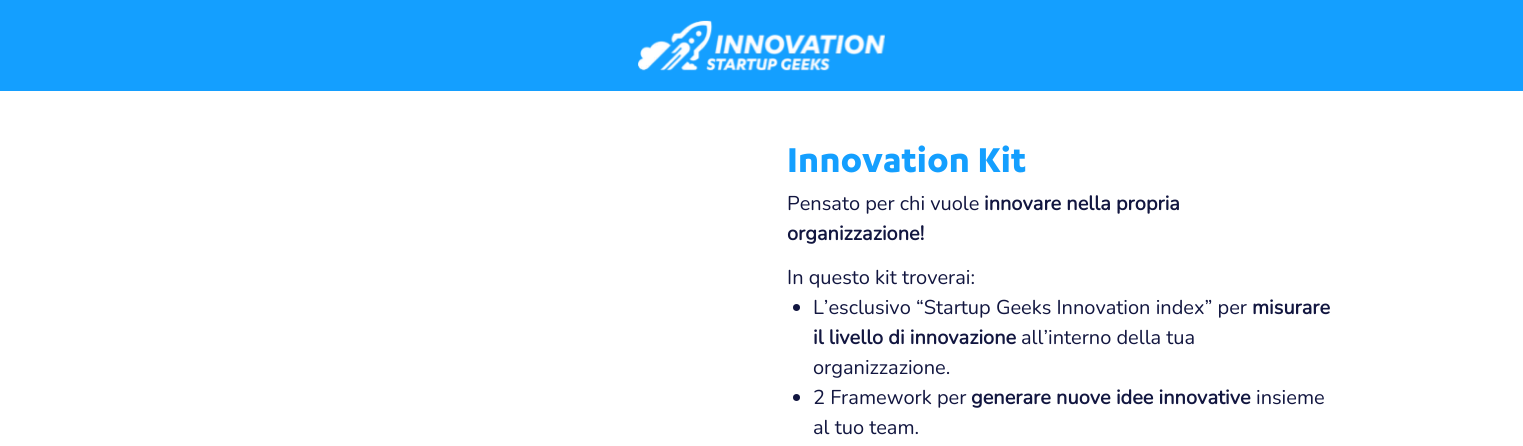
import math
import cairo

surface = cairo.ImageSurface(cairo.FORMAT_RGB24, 1523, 446)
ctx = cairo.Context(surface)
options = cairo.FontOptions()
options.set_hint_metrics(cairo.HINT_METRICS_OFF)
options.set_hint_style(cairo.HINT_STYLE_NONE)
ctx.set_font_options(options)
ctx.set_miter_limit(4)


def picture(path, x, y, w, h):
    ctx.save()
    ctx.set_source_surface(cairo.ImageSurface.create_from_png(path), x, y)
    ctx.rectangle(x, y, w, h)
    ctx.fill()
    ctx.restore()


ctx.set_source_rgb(1, 1, 1)
ctx.paint()
ctx.set_source_rgb(0.082, 0.624, 1)
ctx.rectangle(0, 0, 1523, 91)
ctx.fill()
picture("img1.png", 638, 20, 247, 51)
ctx.select_font_face("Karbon", cairo.FONT_SLANT_NORMAL, cairo.FONT_WEIGHT_BOLD)
ctx.set_font_size(40)
ctx.move_to(787, 172)
ctx.show_text("Innovation Kit")
ctx.select_font_face("Nunito ExtraLight")
ctx.set_font_size(20)
ctx.set_source_rgb(0.071, 0.086, 0.251)
ctx.move_to(787, 210)
ctx.show_text("Pensato per chi vuole")
ctx.select_font_face("Nunito", cairo.FONT_SLANT_NORMAL, cairo.FONT_WEIGHT_BOLD)
ctx.move_to(984, 210)
ctx.show_text("innovare nella propria")
ctx.move_to(787, 240)
ctx.show_text("organizzazione!")
ctx.select_font_face("Nunito ExtraLight")
ctx.move_to(787, 284)
ctx.show_text("In questo kit troverai:")
ctx.new_path()
ctx.arc(796.5, 307.5, 3.5, 0, 2 * math.pi)
ctx.fill()
ctx.move_to(813, 314)
ctx.show_text("L’esclusivo “Startup Geeks Innovation index” per")
ctx.select_font_face("Nunito", cairo.FONT_SLANT_NORMAL, cairo.FONT_WEIGHT_BOLD)
ctx.move_to(1252, 314)
ctx.show_text("misurare")
ctx.move_to(813, 344)
ctx.show_text("il livello di innovazione")
ctx.select_font_face("Nunito ExtraLight")
ctx.move_to(1021, 344)
ctx.show_text("all’interno della tua")
ctx.move_to(813, 374)
ctx.show_text("organizzazione.")
ctx.new_path()
ctx.arc(796.5, 397.5, 3.5, 0, 2 * math.pi)
ctx.fill()
ctx.move_to(813, 404)
ctx.show_text("2 Framework per")
ctx.select_font_face("Nunito", cairo.FONT_SLANT_NORMAL, cairo.FONT_WEIGHT_BOLD)
ctx.move_to(971, 404)
ctx.show_text("generare nuove idee innovative")
ctx.select_font_face("Nunito ExtraLight")
ctx.move_to(1256, 404)
ctx.show_text("insieme")
ctx.move_to(813, 434)
ctx.show_text("al tuo team.")
surface.write_to_png("page.png")
